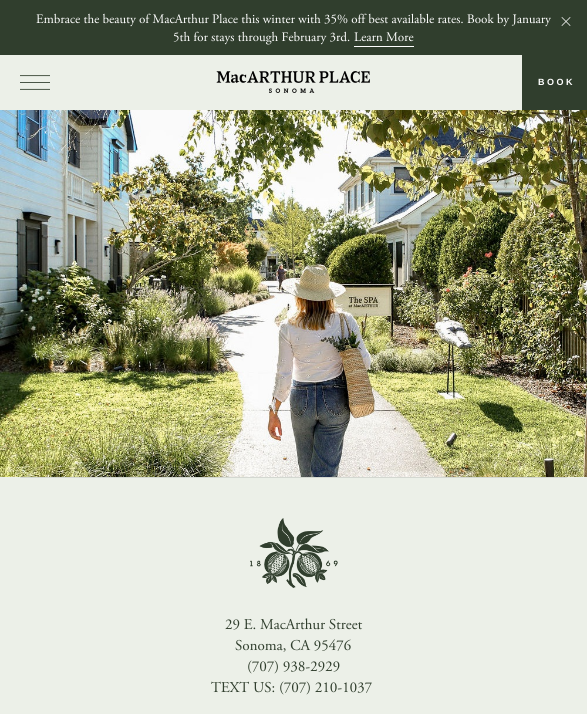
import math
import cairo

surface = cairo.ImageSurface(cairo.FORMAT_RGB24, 587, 714)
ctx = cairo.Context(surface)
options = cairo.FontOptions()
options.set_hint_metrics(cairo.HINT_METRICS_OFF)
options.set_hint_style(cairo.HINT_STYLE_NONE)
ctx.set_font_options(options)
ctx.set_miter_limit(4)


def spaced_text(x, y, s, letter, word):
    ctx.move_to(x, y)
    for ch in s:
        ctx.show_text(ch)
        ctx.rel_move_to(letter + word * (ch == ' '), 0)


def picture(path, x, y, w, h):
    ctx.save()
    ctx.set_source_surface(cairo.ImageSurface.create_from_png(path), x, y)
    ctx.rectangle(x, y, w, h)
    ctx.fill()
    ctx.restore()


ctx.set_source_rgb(0.922, 0.941, 0.91)
ctx.paint()
ctx.set_source_rgb(0.188, 0.243, 0.176)
ctx.rectangle(0, 0, 587, 55)
ctx.fill()
picture("img1.png", 36, 13, 515, 14)
picture("img2.png", 173, 31, 177, 14)
picture("img3.png", 354, 32, 60, 10)
ctx.set_source_rgb(1, 1, 1)
ctx.rectangle(354, 46, 60, 1)
ctx.fill()
ctx.new_path()
ctx.move_to(561.5, 25.5)
ctx.line_to(570, 17)
ctx.line_to(570.5, 17.5)
ctx.line_to(562, 26)
ctx.close_path()
ctx.fill()
ctx.new_path()
ctx.move_to(562, 17)
ctx.line_to(570.5, 25.5)
ctx.line_to(570, 26)
ctx.line_to(561.5, 17.5)
ctx.close_path()
ctx.fill()
picture("img4.png", 20, 75, 30, 15)
picture("img5.png", 216, 71, 154, 22)
ctx.set_source_rgb(0.188, 0.243, 0.176)
ctx.rectangle(522, 55, 65, 55)
ctx.fill()
ctx.select_font_face("Liberation Sans", cairo.FONT_SLANT_NORMAL, cairo.FONT_WEIGHT_BOLD)
ctx.set_font_size(9)
ctx.set_source_rgb(1, 1, 1)
spaced_text(538, 85, "BOOK", 2.5, 0)
picture("img6.png", 0, 110, 587, 367)
ctx.set_source_rgb(0.831, 0.847, 0.82)
ctx.rectangle(20, 477, 547, 1)
ctx.fill()
picture("img7.png", 250, 518, 88, 70)
picture("img8.png", 225, 618, 138, 12)
picture("img9.png", 235, 639, 116, 13)
picture("img10.png", 248, 660, 92, 14)
picture("img11.png", 211, 681, 161, 14)
surface.write_to_png("page.png")
